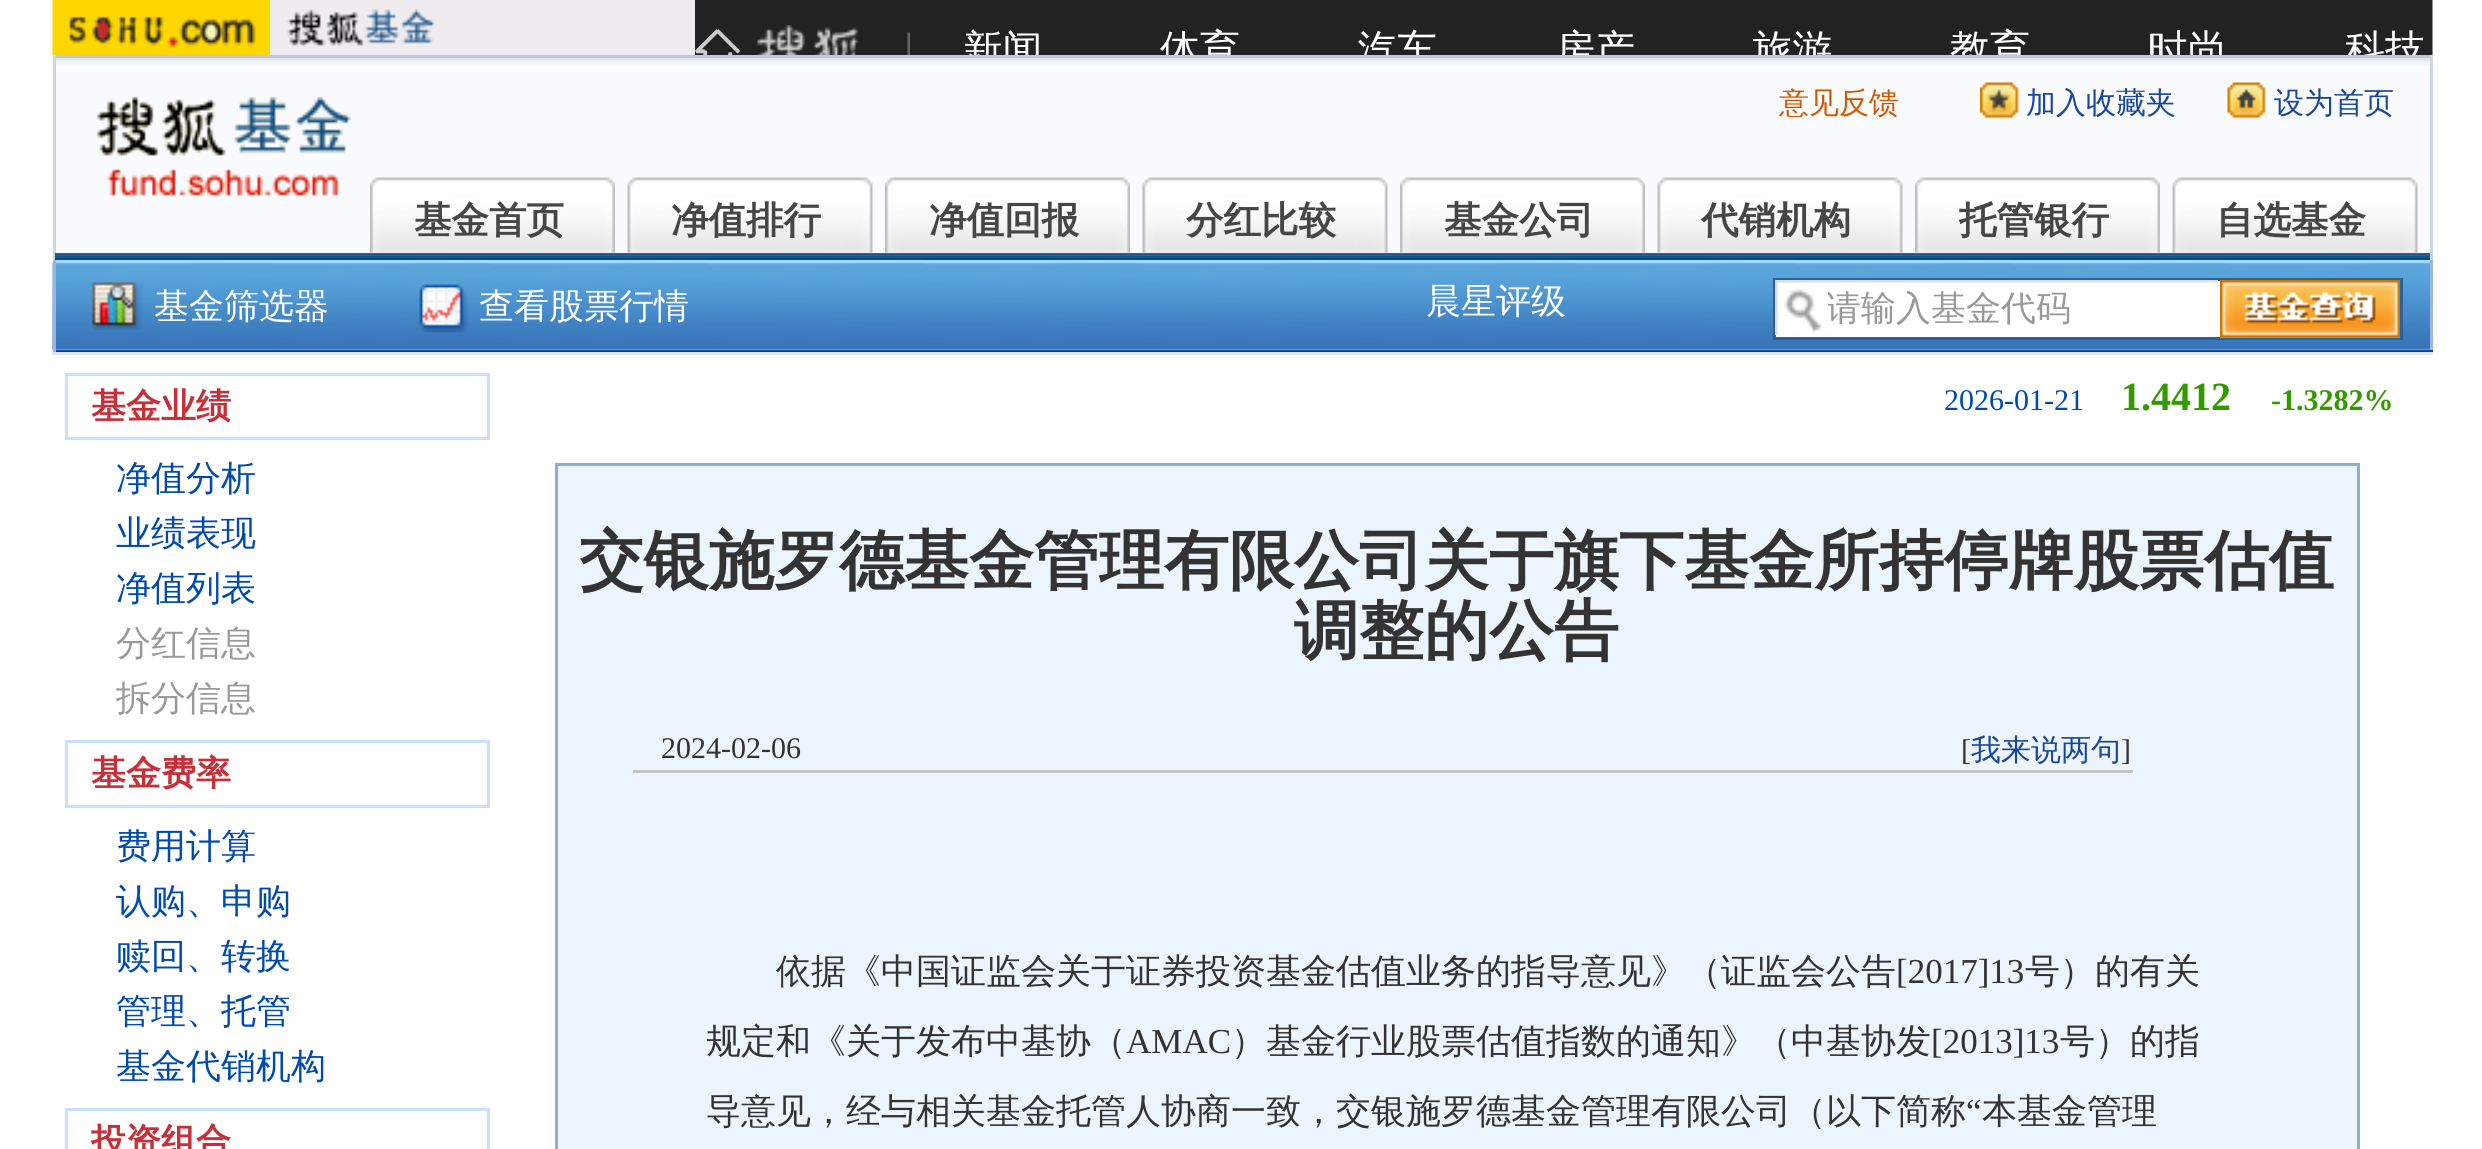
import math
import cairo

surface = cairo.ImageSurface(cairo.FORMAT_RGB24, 2482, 1149)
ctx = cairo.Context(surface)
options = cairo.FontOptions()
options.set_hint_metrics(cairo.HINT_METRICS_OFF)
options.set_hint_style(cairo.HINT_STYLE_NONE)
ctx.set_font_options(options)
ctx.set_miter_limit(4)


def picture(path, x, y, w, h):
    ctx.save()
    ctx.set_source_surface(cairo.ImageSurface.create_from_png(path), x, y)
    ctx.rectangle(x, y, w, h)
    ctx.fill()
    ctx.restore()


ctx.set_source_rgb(1, 1, 1)
ctx.paint()
picture("img1.png", 52, 0, 2381, 55)
ctx.set_source_rgb(0.98, 0.984, 0.996)
ctx.rectangle(56, 58, 2374, 195)
ctx.fill()
picture("img2.png", 52, 57, 2378, 9)
ctx.set_source_rgb(0.761, 0.78, 0.831)
ctx.rectangle(53, 55, 2380, 3)
ctx.fill()
ctx.set_source_rgb(0.784, 0.839, 0.898)
ctx.rectangle(2430, 55, 3, 205)
ctx.fill()
ctx.rectangle(53, 55, 3, 205)
ctx.fill()
picture("img3.png", 96, 96, 255, 100)
ctx.select_font_face("WenQuanYi Zen Hei Medium")
ctx.set_font_size(30)
ctx.set_source_rgb(0.835, 0.345, 0)
ctx.move_to(1779, 113)
ctx.show_text("意见反馈")
picture("img4.png", 1980, 82, 39, 37)
ctx.set_source_rgb(0.094, 0.278, 0.608)
ctx.move_to(2026, 113)
ctx.show_text("加入收藏夹")
picture("img5.png", 2227, 82, 39, 37)
ctx.move_to(2274, 113)
ctx.show_text("设为首页")
picture("img6.png", 370, 177, 245, 76)
ctx.select_font_face("WenQuanYi Zen Hei", cairo.FONT_SLANT_NORMAL, cairo.FONT_WEIGHT_BOLD)
ctx.set_font_size(37.5)
ctx.set_source_rgb(0.275, 0.275, 0.275)
ctx.move_to(414, 233)
ctx.show_text("基金首页")
picture("img7.png", 627, 177, 246, 76)
ctx.move_to(671, 233)
ctx.show_text("净值排行")
picture("img6.png", 885, 177, 245, 76)
ctx.move_to(929, 233)
ctx.show_text("净值回报")
picture("img8.png", 1142, 177, 246, 76)
ctx.move_to(1186, 233)
ctx.show_text("分红比较")
picture("img6.png", 1400, 177, 245, 76)
ctx.move_to(1444, 233)
ctx.show_text("基金公司")
picture("img9.png", 1657, 177, 246, 76)
ctx.move_to(1701, 233)
ctx.show_text("代销机构")
picture("img6.png", 1915, 177, 245, 76)
ctx.move_to(1959, 233)
ctx.show_text("托管银行")
picture("img7.png", 2172, 177, 246, 76)
ctx.move_to(2216, 233)
ctx.show_text("自选基金")
ctx.set_source_rgb(0.043, 0.361, 0.549)
ctx.rectangle(55, 256, 2375, 2)
ctx.fill()
ctx.set_source_rgb(0.18, 0.357, 0.545)
ctx.rectangle(55, 253, 2375, 3)
ctx.fill()
ctx.set_source_rgb(0.071, 0.282, 0.475)
ctx.rectangle(55, 258, 2375, 2)
ctx.fill()
picture("img10.png", 52, 260, 2378, 92)
ctx.set_source_rgb(0.631, 0.847, 1)
ctx.rectangle(53, 260, 2380, 3)
ctx.fill()
ctx.set_source_rgb(0.608, 0.718, 0.871)
ctx.rectangle(2430, 260, 3, 93)
ctx.fill()
ctx.set_source_rgb(0.02, 0.286, 0.604)
ctx.rectangle(53, 350, 2380, 2)
ctx.fill()
ctx.set_source_rgb(0.608, 0.718, 0.871)
ctx.rectangle(53, 260, 3, 93)
ctx.fill()
picture("img11.png", 92, 282, 51, 48)
ctx.select_font_face("WenQuanYi Zen Hei Medium")
ctx.set_font_size(35)
ctx.set_source_rgb(1, 1, 1)
ctx.move_to(154, 318)
ctx.show_text("基金筛选器")
picture("img12.png", 418, 284, 50, 49)
ctx.move_to(479, 318)
ctx.show_text("查看股票行情")
ctx.move_to(1426, 313)
ctx.show_text("晨星评级")
ctx.rectangle(1776, 281, 444, 56)
ctx.fill()
ctx.rectangle(1774.5, 279.5, 627, 59)
ctx.set_source_rgb(0.161, 0.384, 0.588)
ctx.set_line_width(3)
ctx.stroke()
ctx.set_source_rgb(1, 1, 1)
ctx.rectangle(2217, 280, 1, 1)
ctx.fill()
picture("img13.png", 1775, 280, 443, 55)
ctx.save()
ctx.rectangle(1828, 288, 387, 45)
ctx.clip()
ctx.set_source_rgb(0.6, 0.6, 0.6)
ctx.move_to(1826, 320)
ctx.show_text("请输入基金代码")
ctx.restore()
ctx.set_source_rgb(1, 0.6, 0)
ctx.rectangle(2220, 337, 180, 1)
ctx.fill()
picture("img14.png", 2220, 280, 180, 58)
ctx.set_source_rgb(0.886, 0.902, 0.922)
ctx.rectangle(52, 352, 2381, 3)
ctx.fill()
ctx.rectangle(66.5, 374.5, 422, 64)
ctx.set_source_rgb(0.776, 0.878, 1)
ctx.stroke()
ctx.select_font_face("WenQuanYi Zen Hei", cairo.FONT_SLANT_NORMAL, cairo.FONT_WEIGHT_BOLD)
ctx.set_source_rgb(0.78, 0.188, 0.224)
ctx.move_to(91, 418)
ctx.show_text("基金业绩")
ctx.select_font_face("WenQuanYi Zen Hei Medium")
ctx.set_source_rgb(0, 0.29, 0.682)
ctx.move_to(116, 490)
ctx.show_text("净值分析")
ctx.move_to(116, 545)
ctx.show_text("业绩表现")
ctx.move_to(116, 600)
ctx.show_text("净值列表")
ctx.set_source_rgb(0.6, 0.6, 0.6)
ctx.move_to(116, 655)
ctx.show_text("分红信息")
ctx.move_to(116, 710)
ctx.show_text("拆分信息")
ctx.rectangle(66.5, 741.5, 422, 65)
ctx.set_source_rgb(0.776, 0.878, 1)
ctx.stroke()
ctx.select_font_face("WenQuanYi Zen Hei", cairo.FONT_SLANT_NORMAL, cairo.FONT_WEIGHT_BOLD)
ctx.set_source_rgb(0.78, 0.188, 0.224)
ctx.move_to(91, 785)
ctx.show_text("基金费率")
ctx.select_font_face("WenQuanYi Zen Hei Medium")
ctx.set_source_rgb(0, 0.29, 0.682)
ctx.move_to(116, 858)
ctx.show_text("费用计算")
ctx.move_to(116, 913)
ctx.show_text("认购、申购")
ctx.move_to(116, 968)
ctx.show_text("赎回、转换")
ctx.move_to(116, 1023)
ctx.show_text("管理、托管")
ctx.move_to(116, 1078)
ctx.show_text("基金代销机构")
ctx.rectangle(66.5, 1109.5, 422, 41)
ctx.set_source_rgb(0.776, 0.878, 1)
ctx.stroke()
ctx.select_font_face("WenQuanYi Zen Hei", cairo.FONT_SLANT_NORMAL, cairo.FONT_WEIGHT_BOLD)
ctx.set_source_rgb(0.78, 0.188, 0.224)
ctx.move_to(91, 1153)
ctx.show_text("投资组合")
ctx.select_font_face("Liberation Serif")
ctx.set_font_size(30)
ctx.set_source_rgb(0, 0.29, 0.682)
ctx.move_to(1944, 410)
ctx.show_text("2026-01-21")
ctx.select_font_face("Liberation Serif", cairo.FONT_SLANT_NORMAL, cairo.FONT_WEIGHT_BOLD)
ctx.set_font_size(40)
ctx.set_source_rgb(0.2, 0.6, 0)
ctx.move_to(2121, 410)
ctx.show_text("1.4412")
ctx.set_font_size(30)
ctx.move_to(2271, 410)
ctx.show_text("-1.3282%")
ctx.set_source_rgb(0.922, 0.957, 0.996)
ctx.rectangle(556.5, 464.5, 1802, 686)
ctx.fill_preserve()
ctx.set_source_rgb(0.561, 0.686, 0.824)
ctx.stroke()
ctx.select_font_face("WenQuanYi Zen Hei", cairo.FONT_SLANT_NORMAL, cairo.FONT_WEIGHT_BOLD)
ctx.set_font_size(65)
ctx.set_source_rgb(0.2, 0.2, 0.2)
ctx.move_to(579, 583)
ctx.show_text("交银施罗德基金管理有限公司关于旗下基金所持停牌股票估值")
ctx.move_to(1294, 653)
ctx.show_text("调整的公告")
ctx.set_source_rgb(0.773, 0.773, 0.773)
ctx.rectangle(633, 770, 1500, 3)
ctx.fill()
ctx.select_font_face("Liberation Serif")
ctx.set_font_size(30)
ctx.set_source_rgb(0.2, 0.2, 0.2)
ctx.move_to(661, 758)
ctx.show_text("2024-02-06")
ctx.move_to(1961, 760)
ctx.show_text("[")
ctx.select_font_face("WenQuanYi Zen Hei Medium")
ctx.set_source_rgb(0.094, 0.278, 0.608)
ctx.move_to(1971, 760)
ctx.show_text("我来说两句")
ctx.select_font_face("Liberation Serif")
ctx.set_source_rgb(0.2, 0.2, 0.2)
ctx.move_to(2121, 760)
ctx.show_text("]")
ctx.select_font_face("WenQuanYi Zen Hei Medium")
ctx.set_font_size(35)
ctx.move_to(776, 983)
ctx.show_text("依据《中国证监会关于证券投资基金估值业务的指导意见》（证监会公告")
ctx.select_font_face("Liberation Serif")
ctx.move_to(1896, 983)
ctx.show_text("[2017]13")
ctx.select_font_face("WenQuanYi Zen Hei Medium")
ctx.move_to(2025, 983)
ctx.show_text("号）的有关")
ctx.move_to(706, 1053)
ctx.show_text("规定和《关于发布中基协（")
ctx.select_font_face("Liberation Serif")
ctx.move_to(1126, 1053)
ctx.show_text("AMAC")
ctx.select_font_face("WenQuanYi Zen Hei Medium")
ctx.move_to(1231, 1053)
ctx.show_text("）基金行业股票估值指数的通知》（中基协发")
ctx.select_font_face("Liberation Serif")
ctx.move_to(1931, 1053)
ctx.show_text("[2013]13")
ctx.select_font_face("WenQuanYi Zen Hei Medium")
ctx.move_to(2060, 1053)
ctx.show_text("号）的指")
ctx.move_to(706, 1123)
ctx.show_text("导意见，经与相关基金托管人协商一致，交银施罗德基金管理有限公司（以下简称")
ctx.select_font_face("Liberation Serif")
ctx.move_to(1966, 1123)
ctx.show_text("“")
ctx.select_font_face("WenQuanYi Zen Hei Medium")
ctx.move_to(1982, 1123)
ctx.show_text("本基金管理")
surface.write_to_png("page.png")
